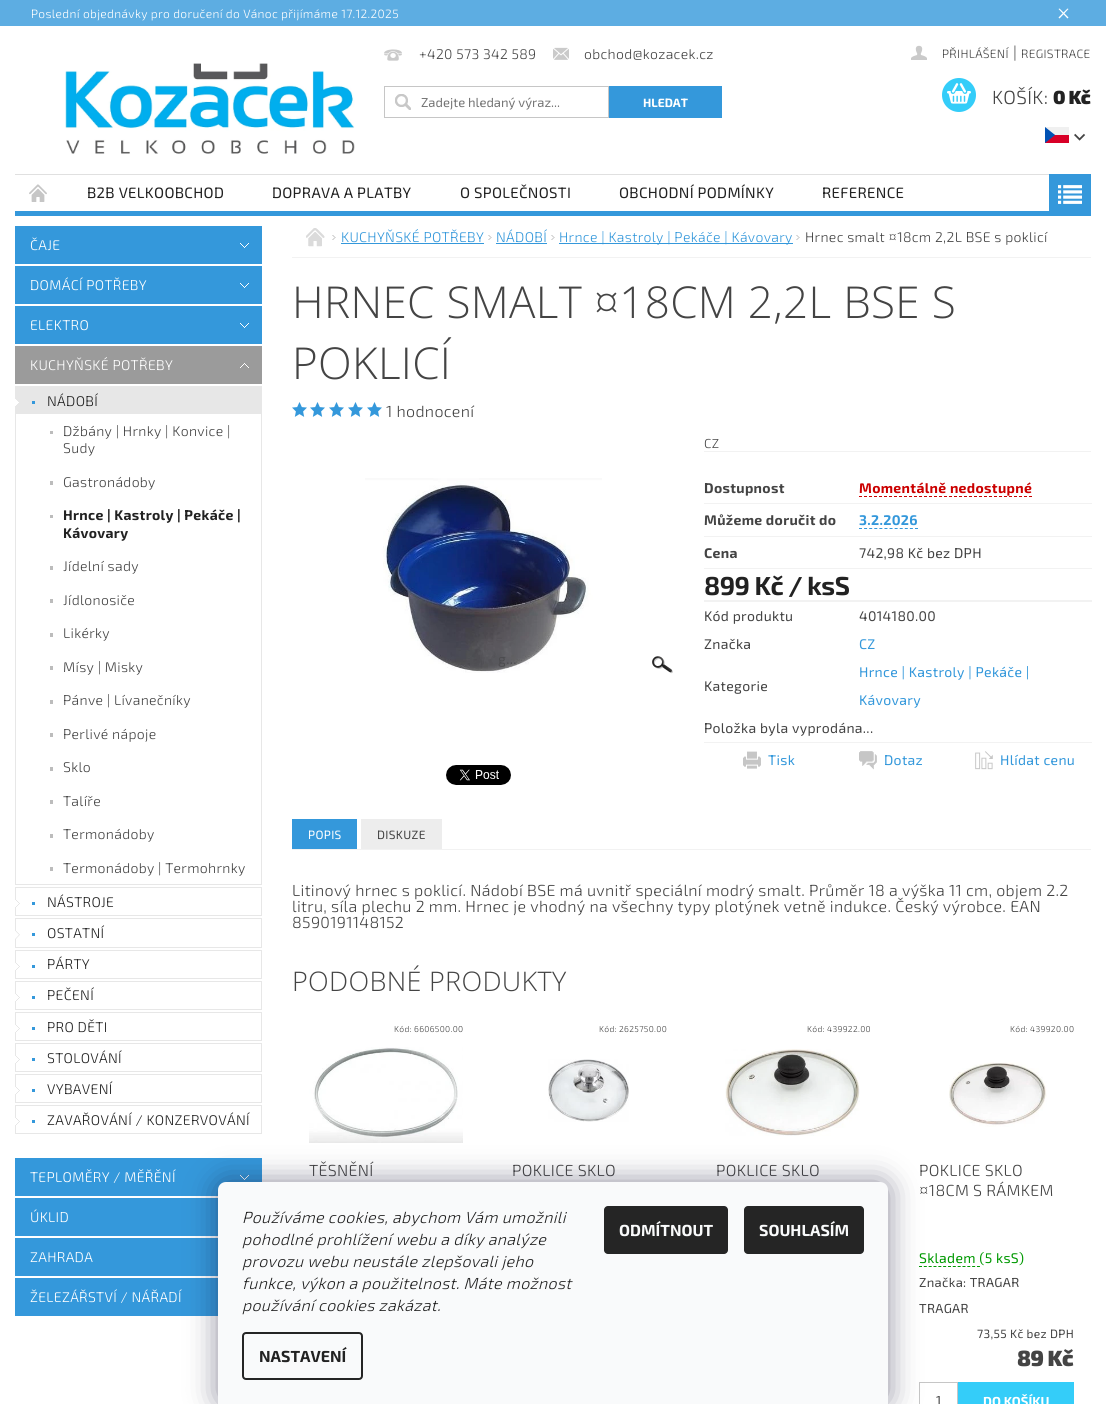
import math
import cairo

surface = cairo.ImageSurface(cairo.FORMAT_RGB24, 1106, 1404)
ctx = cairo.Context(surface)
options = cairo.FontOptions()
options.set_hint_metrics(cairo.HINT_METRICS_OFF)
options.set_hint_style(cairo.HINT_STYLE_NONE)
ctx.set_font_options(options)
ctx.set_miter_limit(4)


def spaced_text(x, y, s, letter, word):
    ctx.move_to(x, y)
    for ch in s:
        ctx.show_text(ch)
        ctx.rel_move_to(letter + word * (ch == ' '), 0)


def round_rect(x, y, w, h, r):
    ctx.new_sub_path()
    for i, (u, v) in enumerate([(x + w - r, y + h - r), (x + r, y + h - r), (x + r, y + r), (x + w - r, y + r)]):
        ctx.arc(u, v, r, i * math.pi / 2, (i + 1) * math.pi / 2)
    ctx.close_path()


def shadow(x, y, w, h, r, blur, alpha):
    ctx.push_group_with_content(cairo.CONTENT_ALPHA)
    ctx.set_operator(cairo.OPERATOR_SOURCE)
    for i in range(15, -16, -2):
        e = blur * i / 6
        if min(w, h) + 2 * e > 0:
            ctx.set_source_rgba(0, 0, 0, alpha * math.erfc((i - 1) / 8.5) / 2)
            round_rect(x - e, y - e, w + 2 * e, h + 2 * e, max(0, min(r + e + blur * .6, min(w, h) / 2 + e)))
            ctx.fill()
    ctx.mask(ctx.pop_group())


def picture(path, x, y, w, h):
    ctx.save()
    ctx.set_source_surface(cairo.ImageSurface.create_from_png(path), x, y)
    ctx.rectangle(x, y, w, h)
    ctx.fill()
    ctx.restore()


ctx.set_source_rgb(1, 1, 1)
ctx.paint()
ctx.set_source_rgb(0.365, 0.678, 0.886)
ctx.rectangle(0, 0, 1106, 26)
ctx.fill()
ctx.select_font_face("Exo 2 Light")
ctx.set_font_size(12)
ctx.set_source_rgb(1, 1, 1)
spaced_text(31, 18, "Poslední objednávky pro doručení do Vánoc přijímáme 17.12.2025", 0.32, 0)
ctx.new_path()
ctx.move_to(1059.5, 8.5)
ctx.line_to(1068.5, 17.5)
ctx.line_to(1067.5, 18.5)
ctx.line_to(1058.5, 9)
ctx.close_path()
ctx.fill()
ctx.new_path()
ctx.move_to(1067.5, 8.5)
ctx.line_to(1068.5, 9)
ctx.line_to(1059.5, 18.5)
ctx.line_to(1058.5, 17.5)
ctx.close_path()
ctx.fill()
ctx.set_source_rgb(0.204, 0.596, 0.859)
ctx.rectangle(15, 211, 1034, 5)
ctx.fill()
picture("img1.png", 65, 63, 290, 91)
picture("img2.png", 384, 49, 18, 12)
ctx.set_font_size(14)
ctx.set_source_rgb(0.267, 0.267, 0.267)
spaced_text(419, 59, "+420 573 342 589", 0.32, 0)
picture("img3.png", 553, 47, 16, 13)
spaced_text(584, 59, "obchod@kozacek.cz", 0.32, 0)
picture("img4.png", 395, 94, 16, 16)
ctx.rectangle(384.5, 86.5, 224, 31)
ctx.set_source_rgb(0.776, 0.776, 0.776)
ctx.set_line_width(1)
ctx.stroke()
ctx.select_font_face("Exo 2")
ctx.set_font_size(13)
ctx.set_source_rgb(0.459, 0.459, 0.459)
ctx.move_to(421, 107)
ctx.show_text("Zadejte hledaný výraz...")
ctx.set_source_rgb(0.204, 0.596, 0.859)
ctx.rectangle(609, 86, 113, 32)
ctx.fill()
ctx.select_font_face("Exo 2", cairo.FONT_SLANT_NORMAL, cairo.FONT_WEIGHT_BOLD)
ctx.set_font_size(12)
ctx.set_source_rgb(1, 1, 1)
ctx.move_to(643, 107)
ctx.show_text("HLEDAT")
picture("img5.png", 911, 45, 16, 15)
ctx.select_font_face("Exo 2 Light")
ctx.set_source_rgb(0.267, 0.267, 0.267)
spaced_text(942, 58, "PŘIHLÁŠENÍ", 0.32, 0)
ctx.set_font_size(16)
spaced_text(1013, 58, "|", 0.32, 0)
ctx.set_font_size(12)
spaced_text(1021, 58, "REGISTRACE", 0.32, 0)
ctx.set_source_rgb(0.204, 0.804, 0.976)
ctx.new_path()
ctx.arc(959, 95, 17, 0, 2 * math.pi)
ctx.fill()
picture("img6.png", 947, 83, 24, 21)
ctx.set_font_size(19)
ctx.set_source_rgb(0.267, 0.267, 0.267)
spaced_text(992, 104, "KOŠÍK:", 0.32, 0)
ctx.select_font_face("Exo 2 Black")
ctx.set_source_rgb(0.133, 0.133, 0.133)
spaced_text(1053, 104, "0 Kč", -0.5, 0)
picture("img7.png", 1045, 127, 24, 16)
picture("img8.png", 1074, 133, 12, 8)
ctx.set_source_rgb(0.878, 0.878, 0.878)
ctx.rectangle(15, 174, 1034, 1)
ctx.fill()
picture("img9.png", 29, 184, 18, 18)
ctx.select_font_face("Exo 2")
ctx.set_font_size(15)
ctx.set_source_rgb(0.133, 0.133, 0.133)
spaced_text(87, 198, "B2B VELKOOBCHOD", 0.32, 0)
spaced_text(272, 198, "DOPRAVA A PLATBY", 0.32, 0)
spaced_text(460, 198, "O SPOLEČNOSTI", 0.32, 0)
spaced_text(619, 198, "OBCHODNÍ PODMÍNKY", 0.32, 0)
spaced_text(822, 198, "REFERENCE", 0.32, 0)
ctx.set_source_rgb(0.204, 0.596, 0.859)
ctx.rectangle(1049, 174, 42, 42)
ctx.fill()
picture("img10.png", 1058, 185, 24, 19)
ctx.rectangle(15, 226, 247, 38)
ctx.fill()
picture("img11.png", 240, 243, 9, 5)
ctx.select_font_face("Exo 2 Light")
ctx.set_font_size(14)
ctx.set_source_rgb(1, 1, 1)
spaced_text(30, 250, "ČAJE", 0.32, 0)
ctx.set_source_rgb(0.204, 0.596, 0.859)
ctx.rectangle(15, 266, 247, 38)
ctx.fill()
picture("img11.png", 240, 283, 9, 5)
ctx.set_source_rgb(1, 1, 1)
spaced_text(30, 290, "DOMÁCÍ POTŘEBY", 0.32, 0)
ctx.set_source_rgb(0.204, 0.596, 0.859)
ctx.rectangle(15, 306, 247, 38)
ctx.fill()
picture("img11.png", 240, 323, 9, 5)
ctx.set_source_rgb(1, 1, 1)
spaced_text(30, 330, "ELEKTRO", 0.32, 0)
ctx.set_source_rgb(0.608, 0.608, 0.608)
ctx.rectangle(15, 346, 247, 38)
ctx.fill()
picture("img12.png", 240, 363, 9, 5)
ctx.set_source_rgb(1, 1, 1)
spaced_text(30, 370, "KUCHYŇSKÉ POTŘEBY", 0.32, 0)
ctx.rectangle(15.5, 386.5, 246, 498)
ctx.set_source_rgb(0.906, 0.906, 0.906)
ctx.stroke()
ctx.rectangle(16, 387, 245, 27)
ctx.fill()
picture("img13.png", 15, 399, 4, 7)
ctx.set_source_rgb(0.204, 0.596, 0.859)
ctx.rectangle(32, 401, 3, 3)
ctx.fill()
ctx.set_source_rgb(0.133, 0.133, 0.133)
spaced_text(47, 406, "NÁDOBÍ", 0.32, 0)
ctx.set_source_rgb(0.737, 0.737, 0.737)
ctx.rectangle(50, 431, 3, 3)
ctx.fill()
ctx.set_source_rgb(0.267, 0.267, 0.267)
spaced_text(63, 436, "Džbány | Hrnky | Konvice |", 0.32, 0)
spaced_text(63, 453, "Sudy", 0.32, 0)
ctx.set_source_rgb(0.737, 0.737, 0.737)
ctx.rectangle(50, 481, 3, 4)
ctx.fill()
ctx.set_source_rgb(0.267, 0.267, 0.267)
spaced_text(63, 487, "Gastronádoby", 0.32, 0)
ctx.set_source_rgb(0.737, 0.737, 0.737)
ctx.rectangle(50, 515, 3, 3)
ctx.fill()
ctx.select_font_face("Exo 2", cairo.FONT_SLANT_NORMAL, cairo.FONT_WEIGHT_BOLD)
ctx.set_source_rgb(0.133, 0.133, 0.133)
spaced_text(63, 520, "Hrnce | Kastroly | Pekáče |", 0.32, 0)
spaced_text(63, 538, "Kávovary", 0.32, 0)
ctx.set_source_rgb(0.737, 0.737, 0.737)
ctx.rectangle(50, 566, 3, 4)
ctx.fill()
ctx.select_font_face("Exo 2 Light")
ctx.set_source_rgb(0.267, 0.267, 0.267)
spaced_text(63, 571, "Jídelní sady", 0.32, 0)
ctx.set_source_rgb(0.737, 0.737, 0.737)
ctx.rectangle(50, 599, 3, 4)
ctx.fill()
ctx.set_source_rgb(0.267, 0.267, 0.267)
spaced_text(63, 605, "Jídlonosiče", 0.32, 0)
ctx.set_source_rgb(0.737, 0.737, 0.737)
ctx.rectangle(50, 633, 3, 4)
ctx.fill()
ctx.set_source_rgb(0.267, 0.267, 0.267)
spaced_text(63, 638, "Likérky", 0.32, 0)
ctx.set_source_rgb(0.737, 0.737, 0.737)
ctx.rectangle(50, 666, 3, 4)
ctx.fill()
ctx.set_source_rgb(0.267, 0.267, 0.267)
spaced_text(63, 672, "Mísy | Misky", 0.32, 0)
ctx.set_source_rgb(0.737, 0.737, 0.737)
ctx.rectangle(50, 700, 3, 4)
ctx.fill()
ctx.set_source_rgb(0.267, 0.267, 0.267)
spaced_text(63, 705, "Pánve | Lívanečníky", 0.32, 0)
ctx.set_source_rgb(0.737, 0.737, 0.737)
ctx.rectangle(50, 733, 3, 4)
ctx.fill()
ctx.set_source_rgb(0.267, 0.267, 0.267)
spaced_text(63, 739, "Perlivé nápoje", 0.32, 0)
ctx.set_source_rgb(0.737, 0.737, 0.737)
ctx.rectangle(50, 767, 3, 4)
ctx.fill()
ctx.set_source_rgb(0.267, 0.267, 0.267)
spaced_text(63, 772, "Sklo", 0.32, 0)
ctx.set_source_rgb(0.737, 0.737, 0.737)
ctx.rectangle(50, 800, 3, 4)
ctx.fill()
ctx.set_source_rgb(0.267, 0.267, 0.267)
spaced_text(63, 806, "Talíře", 0.32, 0)
ctx.set_source_rgb(0.737, 0.737, 0.737)
ctx.rectangle(50, 834, 3, 4)
ctx.fill()
ctx.set_source_rgb(0.267, 0.267, 0.267)
spaced_text(63, 839, "Termonádoby", 0.32, 0)
ctx.set_source_rgb(0.737, 0.737, 0.737)
ctx.rectangle(50, 867, 3, 4)
ctx.fill()
ctx.set_source_rgb(0.267, 0.267, 0.267)
spaced_text(63, 873, "Termonádoby | Termohrnky", 0.32, 0)
ctx.rectangle(15.5, 887.5, 246, 28)
ctx.set_source_rgb(0.906, 0.906, 0.906)
ctx.stroke()
picture("img14.png", 15, 900, 5, 7)
ctx.set_source_rgb(0.204, 0.596, 0.859)
ctx.rectangle(32, 902, 3, 3)
ctx.fill()
ctx.set_source_rgb(0.133, 0.133, 0.133)
spaced_text(47, 907, "NÁSTROJE", 0.32, 0)
ctx.rectangle(15.5, 918.5, 246, 29)
ctx.set_source_rgb(0.906, 0.906, 0.906)
ctx.stroke()
picture("img15.png", 15, 931, 5, 8)
ctx.set_source_rgb(0.204, 0.596, 0.859)
ctx.rectangle(32, 933, 3, 3)
ctx.fill()
ctx.set_source_rgb(0.133, 0.133, 0.133)
spaced_text(47, 938, "OSTATNÍ", 0.32, 0)
ctx.rectangle(15.5, 950.5, 246, 28)
ctx.set_source_rgb(0.906, 0.906, 0.906)
ctx.stroke()
picture("img14.png", 15, 963, 5, 7)
ctx.set_source_rgb(0.204, 0.596, 0.859)
ctx.rectangle(32, 965, 3, 3)
ctx.fill()
ctx.set_source_rgb(0.133, 0.133, 0.133)
spaced_text(47, 969, "PÁRTY", 0.32, 0)
ctx.rectangle(15.5, 981.5, 246, 28)
ctx.set_source_rgb(0.906, 0.906, 0.906)
ctx.stroke()
picture("img14.png", 15, 994, 5, 7)
ctx.set_source_rgb(0.204, 0.596, 0.859)
ctx.rectangle(32, 996, 3, 3)
ctx.fill()
ctx.set_source_rgb(0.133, 0.133, 0.133)
spaced_text(47, 1000, "PEČENÍ", 0.32, 0)
ctx.rectangle(15.5, 1012.5, 246, 28)
ctx.set_source_rgb(0.906, 0.906, 0.906)
ctx.stroke()
picture("img14.png", 15, 1025, 5, 7)
ctx.set_source_rgb(0.204, 0.596, 0.859)
ctx.rectangle(32, 1027, 3, 3)
ctx.fill()
ctx.set_source_rgb(0.133, 0.133, 0.133)
spaced_text(47, 1032, "PRO DĚTI", 0.32, 0)
ctx.rectangle(15.5, 1043.5, 246, 28)
ctx.set_source_rgb(0.906, 0.906, 0.906)
ctx.stroke()
picture("img14.png", 15, 1056, 5, 7)
ctx.set_source_rgb(0.204, 0.596, 0.859)
ctx.rectangle(32, 1058, 3, 3)
ctx.fill()
ctx.set_source_rgb(0.133, 0.133, 0.133)
spaced_text(47, 1063, "STOLOVÁNÍ", 0.32, 0)
ctx.rectangle(15.5, 1074.5, 246, 28)
ctx.set_source_rgb(0.906, 0.906, 0.906)
ctx.stroke()
picture("img14.png", 15, 1087, 5, 7)
ctx.set_source_rgb(0.204, 0.596, 0.859)
ctx.rectangle(32, 1089, 3, 3)
ctx.fill()
ctx.set_source_rgb(0.133, 0.133, 0.133)
spaced_text(47, 1094, "VYBAVENÍ", 0.32, 0)
ctx.rectangle(15.5, 1105.5, 246, 28)
ctx.set_source_rgb(0.906, 0.906, 0.906)
ctx.stroke()
picture("img14.png", 15, 1118, 5, 7)
ctx.set_source_rgb(0.204, 0.596, 0.859)
ctx.rectangle(32, 1120, 3, 3)
ctx.fill()
ctx.set_source_rgb(0.133, 0.133, 0.133)
spaced_text(47, 1125, "ZAVAŘOVÁNÍ / KONZERVOVÁNÍ", 0.32, 0)
ctx.set_source_rgb(0.204, 0.596, 0.859)
ctx.rectangle(15, 1158, 247, 38)
ctx.fill()
picture("img11.png", 240, 1175, 9, 5)
ctx.set_source_rgb(1, 1, 1)
spaced_text(30, 1182, "TEPLOMĚRY / MĚŘĚNÍ", 0.32, 0)
ctx.set_source_rgb(0.204, 0.596, 0.859)
ctx.rectangle(15, 1198, 203, 38)
ctx.fill()
ctx.set_source_rgb(1, 1, 1)
spaced_text(30, 1222, "ÚKLID", 0.32, 0)
ctx.set_source_rgb(0.204, 0.596, 0.859)
ctx.rectangle(15, 1238, 203, 38)
ctx.fill()
ctx.set_source_rgb(1, 1, 1)
spaced_text(30, 1262, "ZAHRADA", 0.32, 0)
ctx.set_source_rgb(0.204, 0.596, 0.859)
ctx.rectangle(15, 1278, 203, 38)
ctx.fill()
ctx.set_source_rgb(1, 1, 1)
spaced_text(30, 1302, "ŽELEZÁŘSTVÍ / NÁŘADÍ", 0.32, 0)
ctx.set_source_rgb(0.949, 0.949, 0.949)
ctx.rectangle(292, 257, 799, 1)
ctx.fill()
picture("img16.png", 306, 228, 19, 19)
picture("img17.png", 332, 235, 4, 5)
ctx.set_source_rgb(0.204, 0.596, 0.859)
spaced_text(341, 242, "KUCHYŇSKÉ POTŘEBY", 0.32, 0)
ctx.rectangle(341, 243, 143, 1)
ctx.fill()
picture("img17.png", 488, 235, 4, 5)
spaced_text(496, 242, "NÁDOBÍ", 0.32, 0)
ctx.rectangle(496, 243, 51, 1)
ctx.fill()
picture("img17.png", 551, 235, 4, 5)
ctx.rectangle(559, 243, 234, 1)
ctx.fill()
spaced_text(559, 242, "Hrnce | Kastroly | Pekáče | Kávovary", 0.32, 0)
picture("img17.png", 796, 235, 4, 5)
ctx.set_source_rgb(0.267, 0.267, 0.267)
spaced_text(805, 242, "Hrnec smalt ¤18cm 2,2L BSE s poklicí", 0.32, 0)
ctx.select_font_face("Open Sans Light")
ctx.set_font_size(44)
spaced_text(292, 318, "HRNEC SMALT ¤18CM 2,2L BSE S", 0.32, 0)
spaced_text(292, 379, "POKLICÍ", 0.32, 0)
picture("img18.png", 292, 402, 15, 15)
picture("img18.png", 310, 402, 15, 15)
picture("img18.png", 329, 402, 15, 15)
picture("img18.png", 348, 402, 15, 15)
picture("img18.png", 367, 402, 15, 15)
ctx.select_font_face("Exo 2 Light")
ctx.set_font_size(16)
spaced_text(386, 417, "1 hodnocení", 0.32, 0)
picture("img19.png", 365, 478, 237, 195)
ctx.select_font_face("Exo 2")
ctx.set_font_size(14)
ctx.set_source_rgb(0.298, 0.298, 0.31)
spaced_text(498, 664, "g...", 0.32, 0)
picture("img20.png", 652, 656, 21, 18)
picture("img21.png", 446, 765, 65, 20)
ctx.set_source_rgb(0.949, 0.949, 0.949)
ctx.rectangle(704, 451, 387, 1)
ctx.fill()
ctx.select_font_face("Exo 2 Light")
ctx.set_font_size(13)
ctx.set_source_rgb(0.267, 0.267, 0.267)
spaced_text(704, 448, "CZ", 0.32, 0)
ctx.set_source_rgb(0.949, 0.949, 0.949)
ctx.rectangle(704, 503, 388, 1)
ctx.fill()
ctx.select_font_face("Exo 2", cairo.FONT_SLANT_NORMAL, cairo.FONT_WEIGHT_BOLD)
ctx.set_font_size(14)
ctx.set_source_rgb(0.267, 0.267, 0.267)
spaced_text(704, 493, "Dostupnost", 0.32, 0)
ctx.set_source_rgb(0.796, 0, 0)
spaced_text(859, 493, "Momentálně nedostupné", 0.32, 0)
ctx.new_path()
ctx.move_to(859, 496.5)
ctx.line_to(1032, 496.5)
ctx.set_dash([3, 2])
ctx.stroke()
ctx.set_source_rgb(0.949, 0.949, 0.949)
ctx.rectangle(704, 536, 388, 1)
ctx.fill()
ctx.set_source_rgb(0.267, 0.267, 0.267)
spaced_text(704, 525, "Můžeme doručit do", 0.32, 0)
ctx.set_source_rgb(0.204, 0.596, 0.859)
spaced_text(859, 525, "3.2.2026", 0.32, 0)
ctx.new_path()
ctx.move_to(859, 528.5)
ctx.line_to(918, 528.5)
ctx.set_dash([3, 2.09])
ctx.stroke()
ctx.set_source_rgb(0.949, 0.949, 0.949)
ctx.rectangle(704, 568, 388, 1)
ctx.fill()
ctx.set_source_rgb(0.267, 0.267, 0.267)
spaced_text(704, 558, "Cena", 0.32, 0)
ctx.select_font_face("Exo 2")
spaced_text(859, 558, "742,98 Kč bez DPH", 0.32, 0)
ctx.set_source_rgb(0.949, 0.949, 0.949)
ctx.rectangle(704, 600, 388, 2)
ctx.fill()
ctx.select_font_face("Exo 2", cairo.FONT_SLANT_NORMAL, cairo.FONT_WEIGHT_BOLD)
ctx.set_font_size(26)
ctx.set_source_rgb(0.133, 0.133, 0.133)
spaced_text(704, 595, "899 Kč / ksS", -0.5, 0)
ctx.select_font_face("Exo 2")
ctx.set_font_size(14)
ctx.set_source_rgb(0.267, 0.267, 0.267)
spaced_text(704, 621, "Kód produktu", 0.32, 0)
spaced_text(859, 621, "4014180.00", 0.32, 0)
spaced_text(704, 649, "Značka", 0.32, 0)
ctx.set_source_rgb(0.204, 0.596, 0.859)
spaced_text(859, 649, "CZ", 0.32, 0)
ctx.set_source_rgb(0.267, 0.267, 0.267)
spaced_text(704, 691, "Kategorie", 0.32, 0)
ctx.set_source_rgb(0.204, 0.596, 0.859)
spaced_text(859, 677, "Hrnce | Kastroly | Pekáče |", 0.32, 0)
spaced_text(859, 705, "Kávovary", 0.32, 0)
ctx.set_source_rgb(0.949, 0.949, 0.949)
ctx.rectangle(704, 742, 388, 1)
ctx.fill()
ctx.set_source_rgb(0.267, 0.267, 0.267)
spaced_text(704, 733, "Položka byla vyprodána...", 0.32, 0)
picture("img22.png", 743, 751, 18, 18)
ctx.set_source_rgb(0.204, 0.596, 0.859)
spaced_text(768, 765, "Tisk", 0.32, 0)
picture("img23.png", 859, 751, 18, 19)
spaced_text(884, 765, "Dotaz", 0.32, 0)
picture("img24.png", 975, 751, 18, 19)
spaced_text(1000, 765, "Hlídat cenu", 0.32, 0)
ctx.set_source_rgb(0.949, 0.949, 0.949)
ctx.rectangle(292, 849, 799, 1)
ctx.fill()
ctx.set_source_rgb(0.204, 0.596, 0.859)
ctx.rectangle(292, 819, 65, 30)
ctx.fill()
ctx.set_font_size(12)
ctx.set_source_rgb(1, 1, 1)
spaced_text(308, 839, "POPIS", 0.32, 0)
ctx.set_source_rgb(0.929, 0.929, 0.929)
ctx.rectangle(361, 819, 81, 30)
ctx.fill()
ctx.set_source_rgb(0.267, 0.267, 0.267)
spaced_text(377, 839, "DISKUZE", 0.32, 0)
ctx.select_font_face("Exo 2 Light")
ctx.set_font_size(16)
spaced_text(292, 896, "Litinový hrnec s poklicí. Nádobí BSE má uvnitř speciální modrý smalt. Průměr 18 a výška 11 cm, objem 2.2", 0.32, 0)
spaced_text(292, 912, "litru, síla plechu 2 mm. Hrnec je vhodný na všechny typy plotýnek vetně indukce. Český výrobce. EAN", 0.32, 0)
spaced_text(292, 928, "8590191148152", 0.32, 0)
ctx.select_font_face("Open Sans Light")
ctx.set_font_size(27)
spaced_text(292, 991, "PODOBNÉ PRODUKTY", 0.32, 0)
ctx.select_font_face("Exo 2 Light")
ctx.set_font_size(8.5)
spaced_text(394, 1032, "Kód: 6606500.00", 0.32, 0)
picture("img25.png", 309, 1047, 154, 96)
ctx.set_font_size(16)
spaced_text(309, 1176, "TĚSNĚNÍ", 0.32, 0)
ctx.set_font_size(8.5)
spaced_text(599, 1032, "Kód: 2625750.00", 0.32, 0)
picture("img26.png", 548, 1059, 81, 63)
ctx.set_font_size(16)
spaced_text(512, 1176, "POKLICE SKLO", 0.32, 0)
ctx.set_font_size(8.5)
spaced_text(807, 1032, "Kód: 439922.00", 0.32, 0)
picture("img27.png", 725, 1049, 135, 87)
ctx.set_font_size(16)
spaced_text(716, 1176, "POKLICE SKLO", 0.32, 0)
ctx.set_font_size(8.5)
spaced_text(1010, 1032, "Kód: 439920.00", 0.32, 0)
picture("img28.png", 949, 1062, 98, 65)
ctx.set_font_size(16)
spaced_text(919, 1176, "POKLICE SKLO", 0.32, 0)
spaced_text(919, 1196, "¤18CM S RÁMKEM", 0.32, 0)
ctx.select_font_face("Exo 2")
ctx.set_font_size(14)
ctx.set_source_rgb(0, 0.6, 0.004)
spaced_text(919, 1263, "Skladem (5 ksS)", 0.32, 0)
ctx.new_path()
ctx.move_to(919, 1266.5)
ctx.line_to(980, 1266.5)
ctx.set_dash([3, 1.83])
ctx.stroke()
ctx.set_font_size(13)
ctx.set_source_rgb(0.267, 0.267, 0.267)
spaced_text(919, 1287, "Značka: TRAGAR", 0.32, 0)
spaced_text(919, 1313, "TRAGAR", 0.32, 0)
ctx.set_font_size(12)
spaced_text(977, 1338, "73,55 Kč bez DPH", 0.32, 0)
ctx.select_font_face("Exo 2 Black")
ctx.set_font_size(22)
spaced_text(1017, 1366, "89 Kč", -0.5, 0)
ctx.rectangle(919.5, 1382.5, 38, 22)
ctx.set_source_rgb(0.776, 0.776, 0.776)
ctx.set_dash([])
ctx.stroke()
ctx.select_font_face("Exo 2")
ctx.set_font_size(13)
ctx.set_source_rgb(0.267, 0.267, 0.267)
ctx.move_to(936, 1405)
ctx.show_text("1")
ctx.rectangle(958.5, 1382.5, 115, 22)
ctx.set_source_rgb(0.204, 0.804, 0.976)
ctx.stroke()
ctx.rectangle(959, 1383, 114, 21)
ctx.fill()
ctx.select_font_face("Exo 2", cairo.FONT_SLANT_NORMAL, cairo.FONT_WEIGHT_BOLD)
ctx.set_source_rgb(1, 1, 1)
ctx.move_to(983, 1406)
ctx.show_text("DO KOŠÍKU")
ctx.set_source_rgb(0.106, 0.098, 0.224)
shadow(218, 1182, 670, 222, 8, 15, 0.5)
ctx.set_source_rgb(0.973, 0.98, 0.984)
ctx.new_path()
ctx.move_to(226, 1182)
ctx.line_to(880, 1182)
ctx.curve_to(884.5, 1182, 888, 1185.5, 888, 1190)
ctx.line_to(888, 1404)
ctx.line_to(218, 1404)
ctx.line_to(218, 1190)
ctx.curve_to(218, 1185.5, 221.5, 1182, 226, 1182)
ctx.close_path()
ctx.fill()
ctx.select_font_face("Exo 2 Light", cairo.FONT_SLANT_ITALIC)
ctx.set_font_size(16)
ctx.set_source_rgb(0.133, 0.133, 0.133)
spaced_text(242, 1223, "Používáme cookies, abychom Vám umožnili", 0.32, 0)
spaced_text(242, 1245, "pohodlné prohlížení webu a díky analýze", 0.32, 0)
spaced_text(242, 1267, "provozu webu neustále zlepšovali jeho", 0.32, 0)
spaced_text(242, 1289, "funkce, výkon a použitelnost. Máte možnost", 0.32, 0)
spaced_text(242, 1311, "používání cookies zakázat.", 0.32, 0)
round_rect(243, 1333, 119, 46, 3)
ctx.set_source_rgb(0.145, 0.145, 0.145)
ctx.set_line_width(2)
ctx.stroke()
ctx.select_font_face("Exo 2", cairo.FONT_SLANT_NORMAL, cairo.FONT_WEIGHT_BOLD)
ctx.set_source_rgb(0.133, 0.133, 0.133)
ctx.move_to(259, 1362)
ctx.show_text("NASTAVENÍ")
ctx.set_source_rgb(0.145, 0.145, 0.145)
round_rect(604, 1206, 124, 48, 4)
ctx.fill()
ctx.set_source_rgb(0.973, 0.98, 0.984)
ctx.move_to(619, 1236)
ctx.show_text("ODMÍTNOUT")
ctx.set_source_rgb(0.145, 0.145, 0.145)
round_rect(744, 1206, 120, 48, 4)
ctx.fill()
ctx.set_source_rgb(0.973, 0.98, 0.984)
ctx.move_to(759, 1236)
ctx.show_text("SOUHLASÍM")
surface.write_to_png("page.png")
